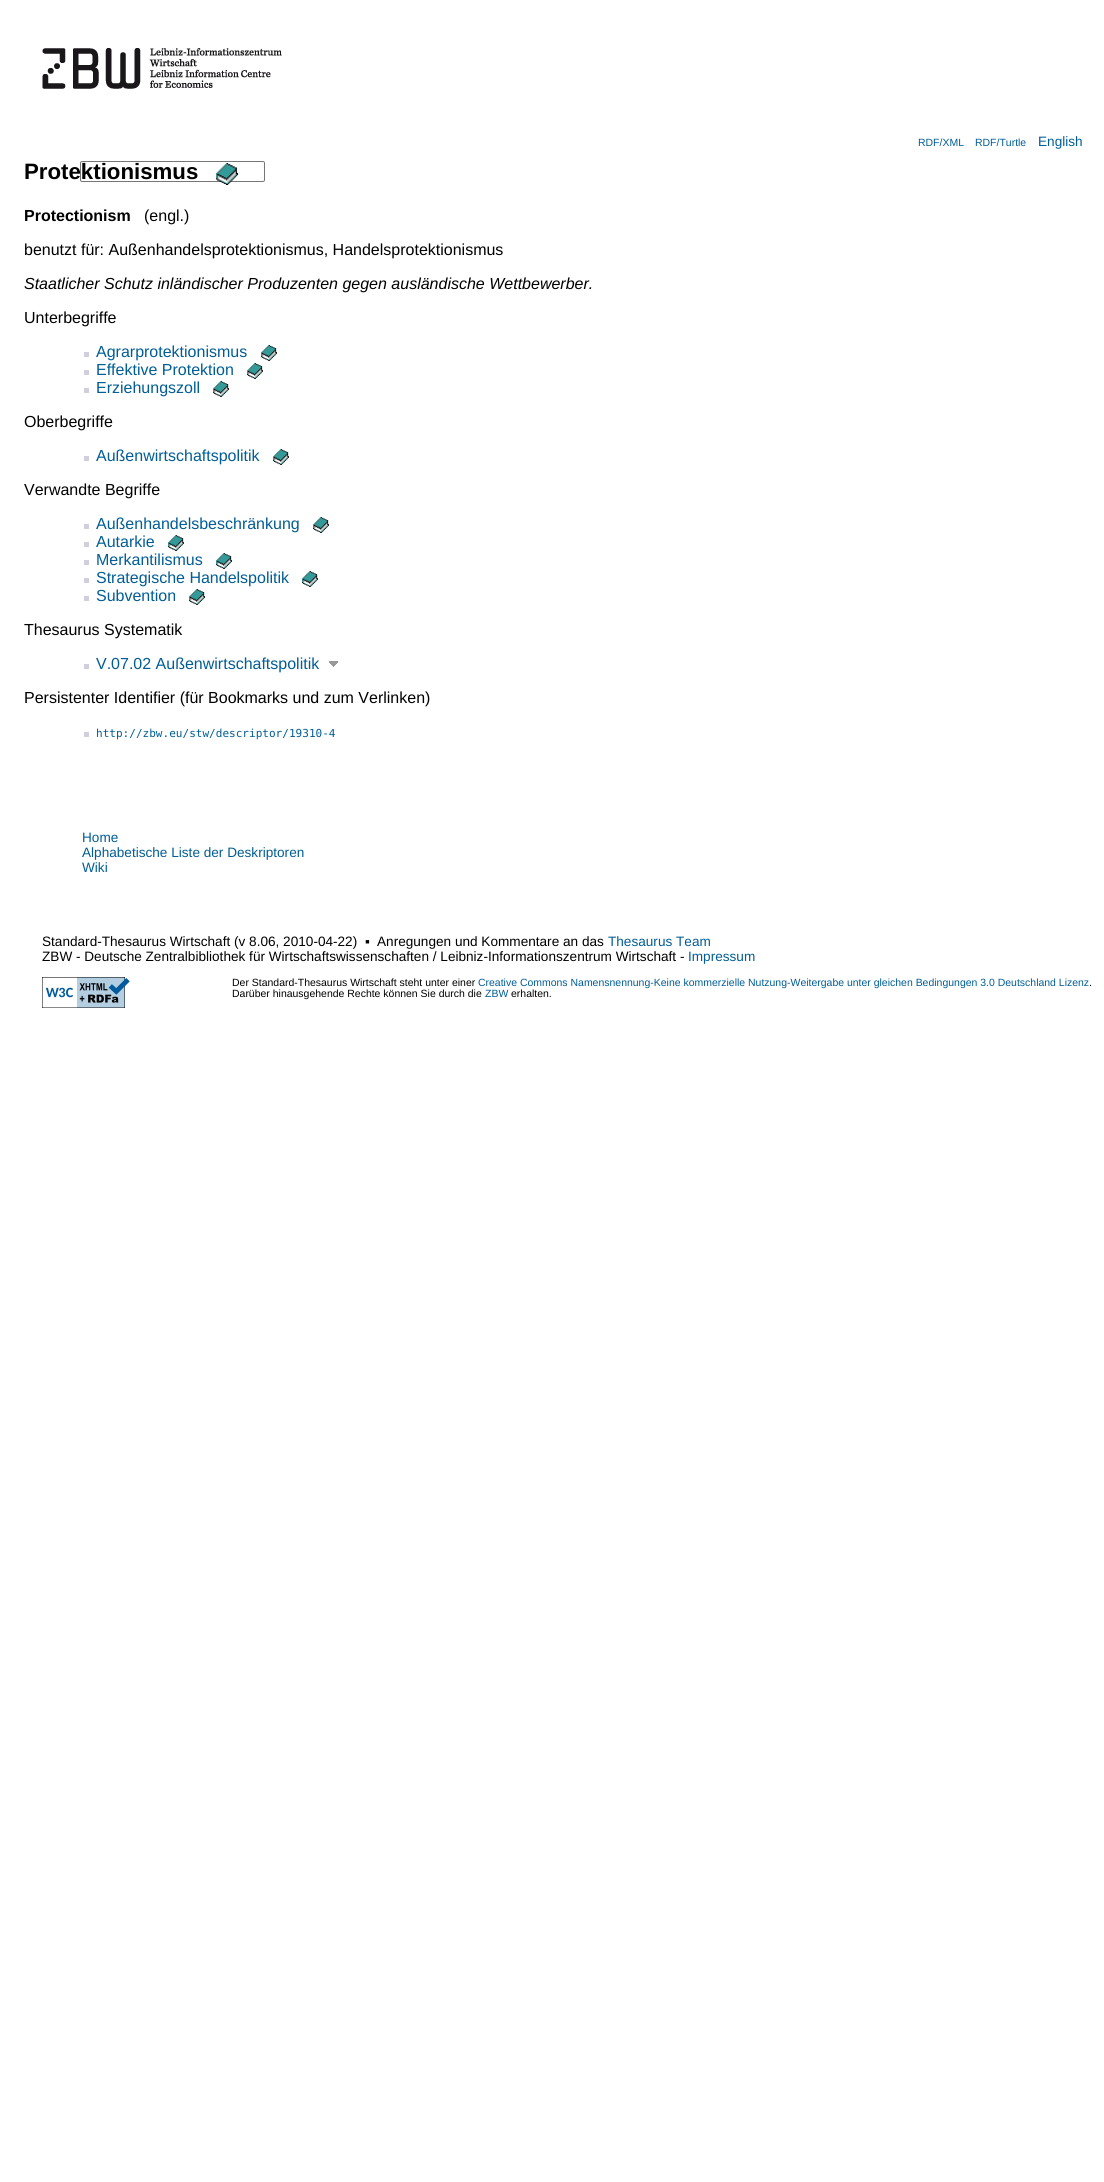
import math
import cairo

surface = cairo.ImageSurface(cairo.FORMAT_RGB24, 1104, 2182)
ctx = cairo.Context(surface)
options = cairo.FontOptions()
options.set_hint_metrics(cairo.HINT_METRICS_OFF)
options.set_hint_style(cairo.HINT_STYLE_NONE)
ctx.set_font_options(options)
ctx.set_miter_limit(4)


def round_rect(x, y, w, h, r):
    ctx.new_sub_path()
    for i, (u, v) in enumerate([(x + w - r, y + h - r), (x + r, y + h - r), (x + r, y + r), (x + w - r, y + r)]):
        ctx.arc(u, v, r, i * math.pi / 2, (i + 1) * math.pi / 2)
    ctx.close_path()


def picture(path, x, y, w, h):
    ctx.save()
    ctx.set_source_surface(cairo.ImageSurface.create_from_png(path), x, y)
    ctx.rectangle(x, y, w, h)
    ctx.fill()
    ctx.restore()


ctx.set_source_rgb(1, 1, 1)
ctx.paint()
picture("img1.png", 42, 48, 240, 41)
ctx.select_font_face("Liberation Sans")
ctx.set_font_size(10.47)
ctx.set_source_rgb(0, 0.365, 0.584)
ctx.move_to(918, 146)
ctx.show_text("RDF/XML")
ctx.move_to(975, 146)
ctx.show_text("RDF/Turtle")
ctx.set_font_size(13.6)
ctx.move_to(1038, 146)
ctx.show_text("English")
round_rect(80.5, 161.5, 184, 20, 1.5)
ctx.set_source_rgb(0.463, 0.463, 0.463)
ctx.set_line_width(1)
ctx.stroke()
ctx.select_font_face("Liberation Sans", cairo.FONT_SLANT_NORMAL, cairo.FONT_WEIGHT_BOLD)
ctx.set_font_size(22.25)
ctx.set_source_rgb(0, 0, 0)
ctx.move_to(24, 179)
ctx.show_text("Protektionismus")
picture("img2.png", 216, 163, 22, 22)
ctx.set_font_size(16)
ctx.move_to(24, 221)
ctx.show_text("Protectionism")
ctx.select_font_face("Liberation Sans")
ctx.move_to(144, 221)
ctx.show_text("(engl.)")
ctx.move_to(24, 255)
ctx.show_text("benutzt für: Außenhandelsprotektionismus, Handelsprotektionismus")
ctx.select_font_face("Liberation Sans", cairo.FONT_SLANT_ITALIC)
ctx.move_to(24, 289)
ctx.show_text("Staatlicher Schutz inländischer Produzenten gegen ausländische Wettbewerber.")
ctx.select_font_face("Liberation Sans")
ctx.move_to(24, 323)
ctx.show_text("Unterbegriffe")
ctx.set_source_rgb(0.82, 0.812, 0.867)
ctx.rectangle(84, 352, 5, 5)
ctx.fill()
ctx.set_source_rgb(0, 0.365, 0.584)
ctx.move_to(96, 357)
ctx.show_text("Agrarprotektionismus")
picture("img3.png", 261, 345, 16, 16)
ctx.set_source_rgb(0.82, 0.812, 0.867)
ctx.rectangle(84, 370, 5, 5)
ctx.fill()
ctx.set_source_rgb(0, 0.365, 0.584)
ctx.move_to(96, 375)
ctx.show_text("Effektive Protektion")
picture("img3.png", 247, 363, 16, 16)
ctx.set_source_rgb(0.82, 0.812, 0.867)
ctx.rectangle(84, 388, 5, 5)
ctx.fill()
ctx.set_source_rgb(0, 0.365, 0.584)
ctx.move_to(96, 393)
ctx.show_text("Erziehungszoll")
picture("img3.png", 213, 381, 16, 16)
ctx.set_source_rgb(0, 0, 0)
ctx.move_to(24, 427)
ctx.show_text("Oberbegriffe")
ctx.set_source_rgb(0.82, 0.812, 0.867)
ctx.rectangle(84, 456, 5, 5)
ctx.fill()
ctx.set_source_rgb(0, 0.365, 0.584)
ctx.move_to(96, 461)
ctx.show_text("Außenwirtschaftspolitik")
picture("img3.png", 273, 449, 16, 16)
ctx.set_source_rgb(0, 0, 0)
ctx.move_to(24, 495)
ctx.show_text("Verwandte Begriffe")
ctx.set_source_rgb(0.82, 0.812, 0.867)
ctx.rectangle(84, 524, 5, 5)
ctx.fill()
ctx.set_source_rgb(0, 0.365, 0.584)
ctx.move_to(96, 529)
ctx.show_text("Außenhandelsbeschränkung")
picture("img3.png", 313, 517, 16, 16)
ctx.set_source_rgb(0.82, 0.812, 0.867)
ctx.rectangle(84, 542, 5, 5)
ctx.fill()
ctx.set_source_rgb(0, 0.365, 0.584)
ctx.move_to(96, 547)
ctx.show_text("Autarkie")
picture("img3.png", 168, 535, 16, 16)
ctx.set_source_rgb(0.82, 0.812, 0.867)
ctx.rectangle(84, 560, 5, 5)
ctx.fill()
ctx.set_source_rgb(0, 0.365, 0.584)
ctx.move_to(96, 565)
ctx.show_text("Merkantilismus")
picture("img3.png", 216, 553, 16, 16)
ctx.set_source_rgb(0.82, 0.812, 0.867)
ctx.rectangle(84, 578, 5, 5)
ctx.fill()
ctx.set_source_rgb(0, 0.365, 0.584)
ctx.move_to(96, 583)
ctx.show_text("Strategische Handelspolitik")
picture("img3.png", 302, 571, 16, 16)
ctx.set_source_rgb(0.82, 0.812, 0.867)
ctx.rectangle(84, 596, 5, 5)
ctx.fill()
ctx.set_source_rgb(0, 0.365, 0.584)
ctx.move_to(96, 601)
ctx.show_text("Subvention")
picture("img3.png", 189, 589, 16, 16)
ctx.set_source_rgb(0, 0, 0)
ctx.move_to(24, 635)
ctx.show_text("Thesaurus Systematik")
ctx.set_source_rgb(0.82, 0.812, 0.867)
ctx.rectangle(84, 664, 5, 5)
ctx.fill()
ctx.set_source_rgb(0, 0.365, 0.584)
ctx.move_to(96, 669)
ctx.show_text("V.07.02 Außenwirtschaftspolitik")
picture("img4.png", 329, 661, 9, 6)
ctx.set_source_rgb(0, 0, 0)
ctx.move_to(24, 703)
ctx.show_text("Persistenter Identifier (für Bookmarks und zum Verlinken)")
ctx.set_source_rgb(0.82, 0.812, 0.867)
ctx.rectangle(84, 732, 5, 5)
ctx.fill()
ctx.select_font_face("DejaVu Sans Mono")
ctx.set_font_size(11.05)
ctx.set_source_rgb(0, 0.365, 0.584)
ctx.move_to(96, 737)
ctx.show_text("http://zbw.eu/stw/descriptor/19310-4")
ctx.select_font_face("Liberation Sans")
ctx.set_font_size(13.6)
ctx.move_to(82, 842)
ctx.show_text("Home")
ctx.move_to(82, 857)
ctx.show_text("Alphabetische Liste der Deskriptoren")
ctx.move_to(82, 872)
ctx.show_text("Wiki")
ctx.set_source_rgb(0, 0, 0)
ctx.move_to(42, 946)
ctx.show_text("Standard-Thesaurus Wirtschaft (v 8.06, 2010-04-22)")
ctx.move_to(365, 946)
ctx.show_text("▪")
ctx.move_to(377, 946)
ctx.show_text("Anregungen und Kommentare an das")
ctx.set_source_rgb(0, 0.365, 0.584)
ctx.move_to(608, 946)
ctx.show_text("Thesaurus Team")
ctx.set_source_rgb(0, 0, 0)
ctx.move_to(42, 961)
ctx.show_text("ZBW - Deutsche Zentralbibliothek für Wirtschaftswissenschaften / Leibniz-Informationszentrum Wirtschaft -")
ctx.set_source_rgb(0, 0.365, 0.584)
ctx.move_to(688, 961)
ctx.show_text("Impressum")
picture("img5.png", 42, 977, 88, 31)
ctx.set_font_size(10.47)
ctx.set_source_rgb(0, 0, 0)
ctx.move_to(232, 986)
ctx.show_text("Der Standard-Thesaurus Wirtschaft steht unter einer")
ctx.set_source_rgb(0, 0.365, 0.584)
ctx.move_to(478, 986)
ctx.show_text("Creative Commons Namensnennung-Keine kommerzielle Nutzung-Weitergabe unter gleichen Bedingungen 3.0 Deutschland Lizenz")
ctx.set_source_rgb(0, 0, 0)
ctx.move_to(1089, 986)
ctx.show_text(".")
ctx.move_to(232, 997)
ctx.show_text("Darüber hinausgehende Rechte können Sie durch die")
ctx.set_source_rgb(0, 0.365, 0.584)
ctx.move_to(485, 997)
ctx.show_text("ZBW")
ctx.set_source_rgb(0, 0, 0)
ctx.move_to(511, 997)
ctx.show_text("erhalten.")
surface.write_to_png("page.png")
